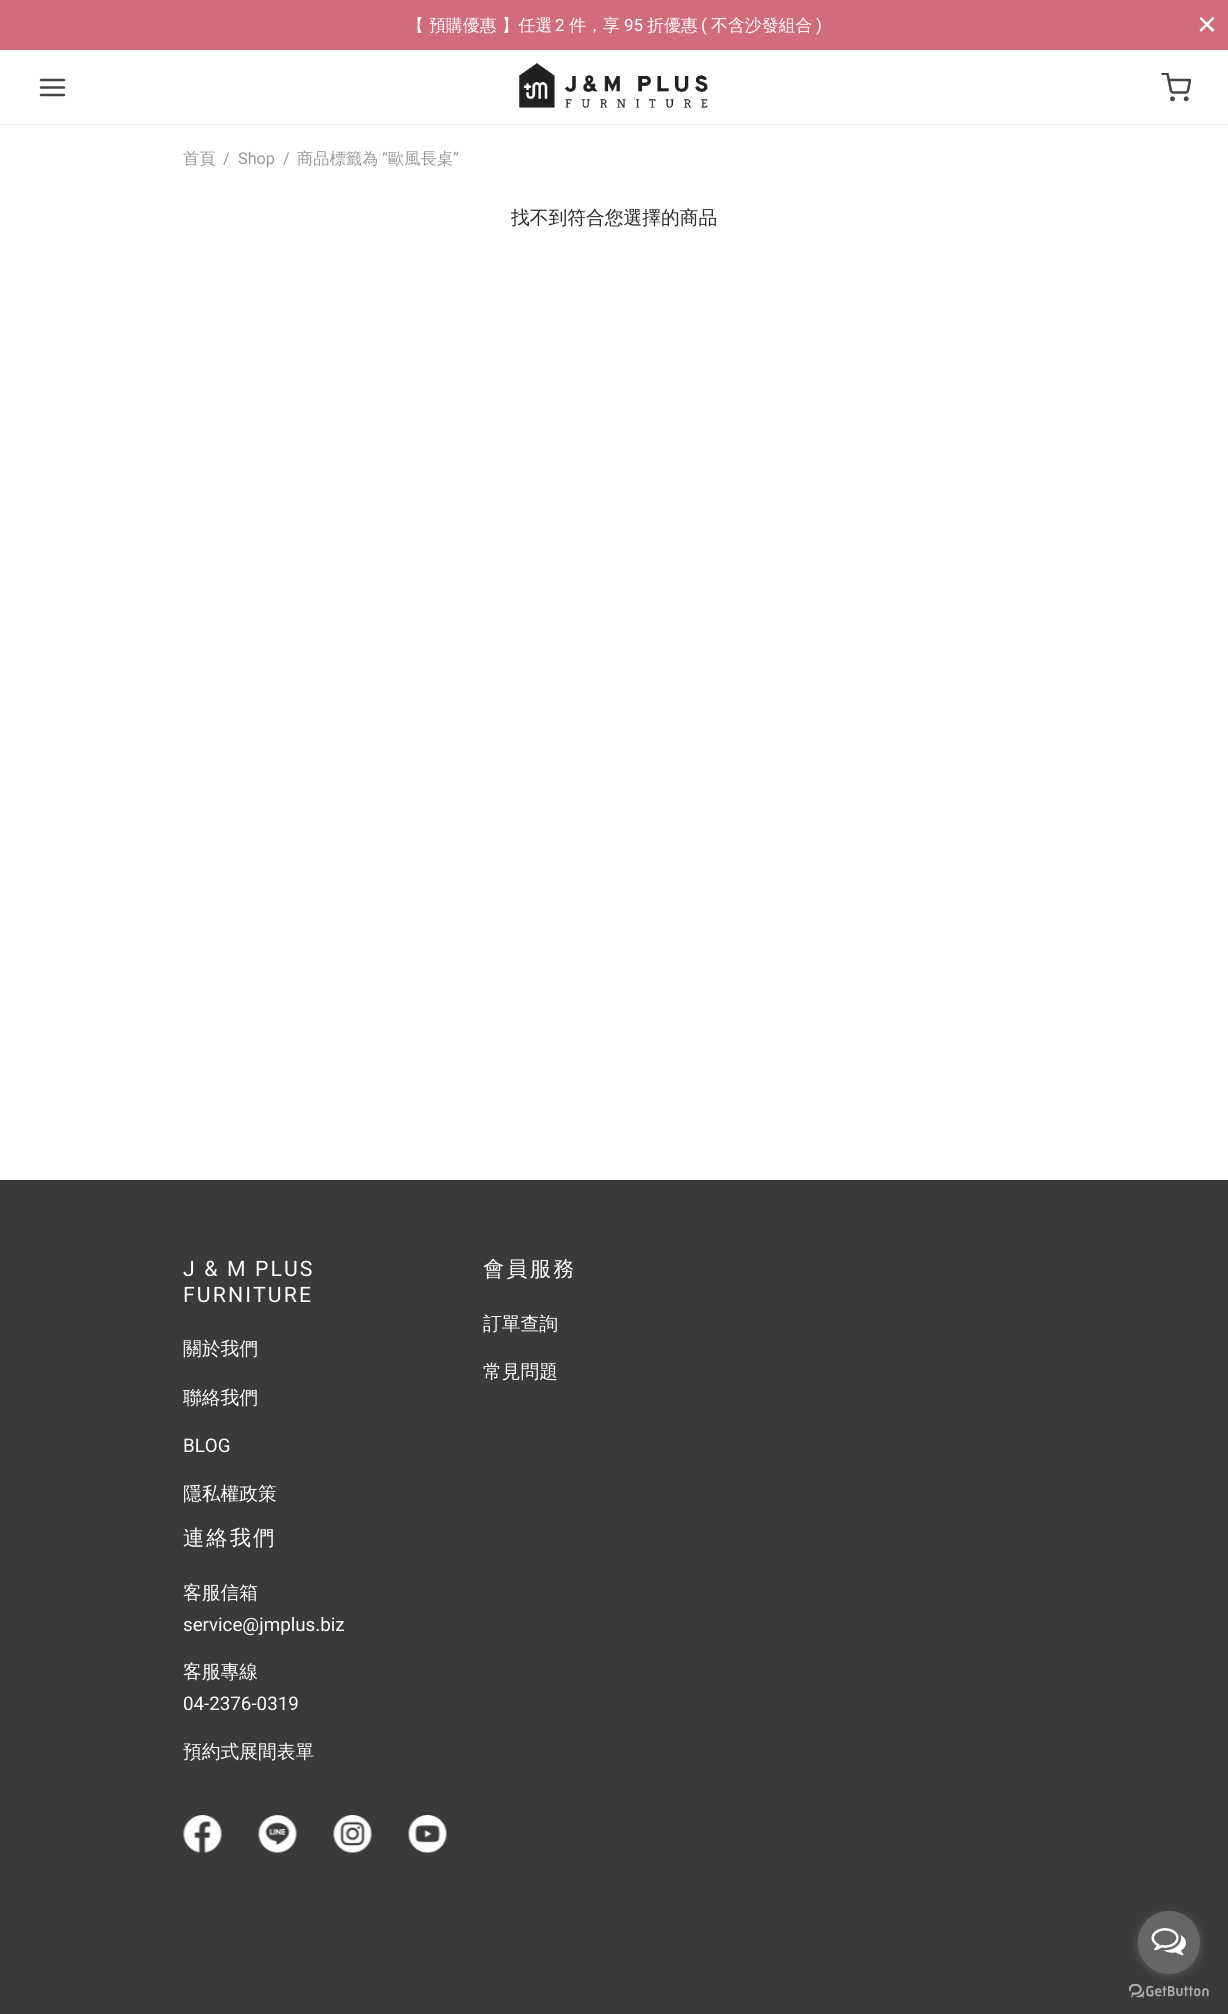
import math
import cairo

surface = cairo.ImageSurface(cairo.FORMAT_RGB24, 1228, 2014)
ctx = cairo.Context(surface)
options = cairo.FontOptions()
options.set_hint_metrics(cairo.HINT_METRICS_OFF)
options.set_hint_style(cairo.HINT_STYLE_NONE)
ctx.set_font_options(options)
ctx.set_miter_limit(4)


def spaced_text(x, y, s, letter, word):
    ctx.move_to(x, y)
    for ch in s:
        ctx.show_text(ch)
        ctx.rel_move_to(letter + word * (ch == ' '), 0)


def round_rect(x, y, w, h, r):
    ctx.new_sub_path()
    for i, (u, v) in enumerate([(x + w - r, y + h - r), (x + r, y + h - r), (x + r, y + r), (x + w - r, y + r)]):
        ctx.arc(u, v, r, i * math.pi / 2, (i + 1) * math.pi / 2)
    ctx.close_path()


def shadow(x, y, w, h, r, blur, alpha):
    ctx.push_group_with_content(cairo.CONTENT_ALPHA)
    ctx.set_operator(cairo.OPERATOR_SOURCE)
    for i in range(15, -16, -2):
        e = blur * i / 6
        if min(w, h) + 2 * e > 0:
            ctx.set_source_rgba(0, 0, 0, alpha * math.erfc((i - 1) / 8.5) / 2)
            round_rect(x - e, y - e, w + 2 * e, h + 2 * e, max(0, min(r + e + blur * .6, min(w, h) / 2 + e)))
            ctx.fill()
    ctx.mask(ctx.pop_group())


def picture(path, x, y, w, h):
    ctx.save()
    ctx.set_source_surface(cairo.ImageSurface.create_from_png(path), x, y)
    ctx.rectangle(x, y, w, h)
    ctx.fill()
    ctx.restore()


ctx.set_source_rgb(1, 1, 1)
ctx.paint()
ctx.set_source_rgb(0.82, 0.424, 0.482)
ctx.rectangle(0, 0, 1228, 50)
ctx.fill()
ctx.select_font_face("WenQuanYi Zen Hei Medium")
ctx.set_font_size(16.9)
ctx.set_source_rgb(1, 1, 1)
ctx.move_to(407, 31)
ctx.show_text("【 預購優惠 】任選")
ctx.select_font_face("Roboto")
ctx.move_to(555, 31)
ctx.show_text("2")
ctx.select_font_face("WenQuanYi Zen Hei Medium")
ctx.move_to(569, 31)
ctx.show_text("件，享")
ctx.select_font_face("Roboto")
ctx.move_to(624, 31)
ctx.show_text("95")
ctx.select_font_face("WenQuanYi Zen Hei Medium")
ctx.move_to(647, 31)
ctx.show_text("折優惠")
ctx.select_font_face("Roboto")
ctx.move_to(701, 31)
ctx.show_text("(")
ctx.select_font_face("WenQuanYi Zen Hei Medium")
ctx.move_to(711, 31)
ctx.show_text("不含沙發組合")
ctx.select_font_face("Roboto")
ctx.move_to(816, 31)
ctx.show_text(")")
ctx.new_path()
ctx.move_to(1201, 17)
ctx.line_to(1214.5, 30)
ctx.line_to(1212.5, 32)
ctx.line_to(1199.5, 18.5)
ctx.close_path()
ctx.fill()
ctx.new_path()
ctx.move_to(1199.5, 30)
ctx.line_to(1212.5, 17)
ctx.line_to(1214.5, 18.5)
ctx.line_to(1201, 32)
ctx.close_path()
ctx.fill()
ctx.new_path()
ctx.move_to(41, 87.5)
ctx.line_to(64, 87.5)
ctx.move_to(41, 80)
ctx.line_to(64, 80)
ctx.move_to(41, 95)
ctx.line_to(64, 95)
ctx.set_source_rgb(0.267, 0.267, 0.267)
ctx.set_line_width(2.5)
ctx.set_line_cap(cairo.LINE_CAP_ROUND)
ctx.set_line_join(cairo.LINE_JOIN_ROUND)
ctx.stroke()
picture("img1.png", 519, 63, 189, 45)
picture("img2.png", 1161, 73, 30, 29)
ctx.set_source_rgb(0.902, 0.902, 0.902)
ctx.rectangle(0, 124, 1228, 1)
ctx.fill()
ctx.select_font_face("WenQuanYi Zen Hei Medium")
ctx.set_font_size(16.25)
ctx.set_source_rgb(0.6, 0.6, 0.6)
ctx.move_to(183, 164)
ctx.show_text("首頁")
ctx.select_font_face("Roboto")
ctx.move_to(223, 164)
ctx.show_text("/")
ctx.move_to(238, 164)
ctx.show_text("Shop")
ctx.move_to(283, 164)
ctx.show_text("/")
ctx.select_font_face("WenQuanYi Zen Hei Medium")
ctx.move_to(297, 164)
ctx.show_text("商品標籤為")
ctx.select_font_face("Roboto")
ctx.move_to(382, 164)
ctx.show_text("“")
ctx.select_font_face("WenQuanYi Zen Hei Medium")
ctx.move_to(388, 164)
ctx.show_text("歐風長桌")
ctx.select_font_face("Roboto")
ctx.move_to(453, 164)
ctx.show_text("”")
ctx.select_font_face("WenQuanYi Zen Hei Medium")
ctx.set_font_size(18.75)
ctx.set_source_rgb(0.157, 0.157, 0.157)
ctx.move_to(511, 224)
ctx.show_text("找不到符合您選擇的商品")
ctx.set_source_rgb(0.227, 0.227, 0.227)
ctx.rectangle(0, 1181, 1228, 833)
ctx.fill()
ctx.set_source_rgb(0.204, 0.204, 0.204)
ctx.rectangle(0, 1180, 1228, 1)
ctx.fill()
ctx.select_font_face("Roboto")
ctx.set_font_size(21.25)
ctx.set_source_rgb(1, 1, 1)
spaced_text(183, 1276, "J & M PLUS", 2.1, 0)
spaced_text(183, 1302, "FURNITURE", 2.1, 0)
ctx.select_font_face("WenQuanYi Zen Hei Medium")
ctx.set_font_size(18.75)
ctx.move_to(183, 1355)
ctx.show_text("關於我們")
ctx.move_to(183, 1404)
ctx.show_text("聯絡我們")
ctx.select_font_face("Roboto")
ctx.move_to(183, 1452)
ctx.show_text("BLOG")
ctx.select_font_face("WenQuanYi Zen Hei Medium")
ctx.move_to(183, 1500)
ctx.show_text("隱私權政策")
ctx.set_font_size(21.25)
spaced_text(483, 1276, "會員服務", 2.1, 0)
ctx.set_font_size(18.75)
ctx.move_to(483, 1330)
ctx.show_text("訂單查詢")
ctx.move_to(483, 1378)
ctx.show_text("常見問題")
ctx.set_font_size(21.25)
spaced_text(183, 1545, "連絡我們", 2.1, 0)
ctx.set_font_size(18.75)
ctx.move_to(183, 1599)
ctx.show_text("客服信箱")
ctx.select_font_face("Roboto")
ctx.move_to(183, 1631)
ctx.show_text("service@jmplus.biz")
ctx.select_font_face("WenQuanYi Zen Hei Medium")
ctx.move_to(183, 1678)
ctx.show_text("客服專線")
ctx.select_font_face("Roboto")
ctx.move_to(183, 1710)
ctx.show_text("04-2376-0319")
ctx.select_font_face("WenQuanYi Zen Hei Medium")
ctx.move_to(183, 1758)
ctx.show_text("預約式展間表單")
picture("img3.png", 183, 1815, 39, 38)
picture("img4.png", 258, 1815, 39, 38)
picture("img5.png", 333, 1815, 39, 38)
picture("img6.png", 408, 1815, 39, 38)
picture("img8.png", 1129, 1984, 80, 14)
ctx.set_source_rgb(0.533, 0.533, 0.533)
shadow(1138, 1913, 62, 62, 31, 4.5, 0.4)
ctx.set_source_rgb(0.4, 0.4, 0.4)
round_rect(1138, 1911, 62, 63, 31)
ctx.fill()
picture("img7.png", 1151, 1928, 35, 28)
surface.write_to_png("page.png")
